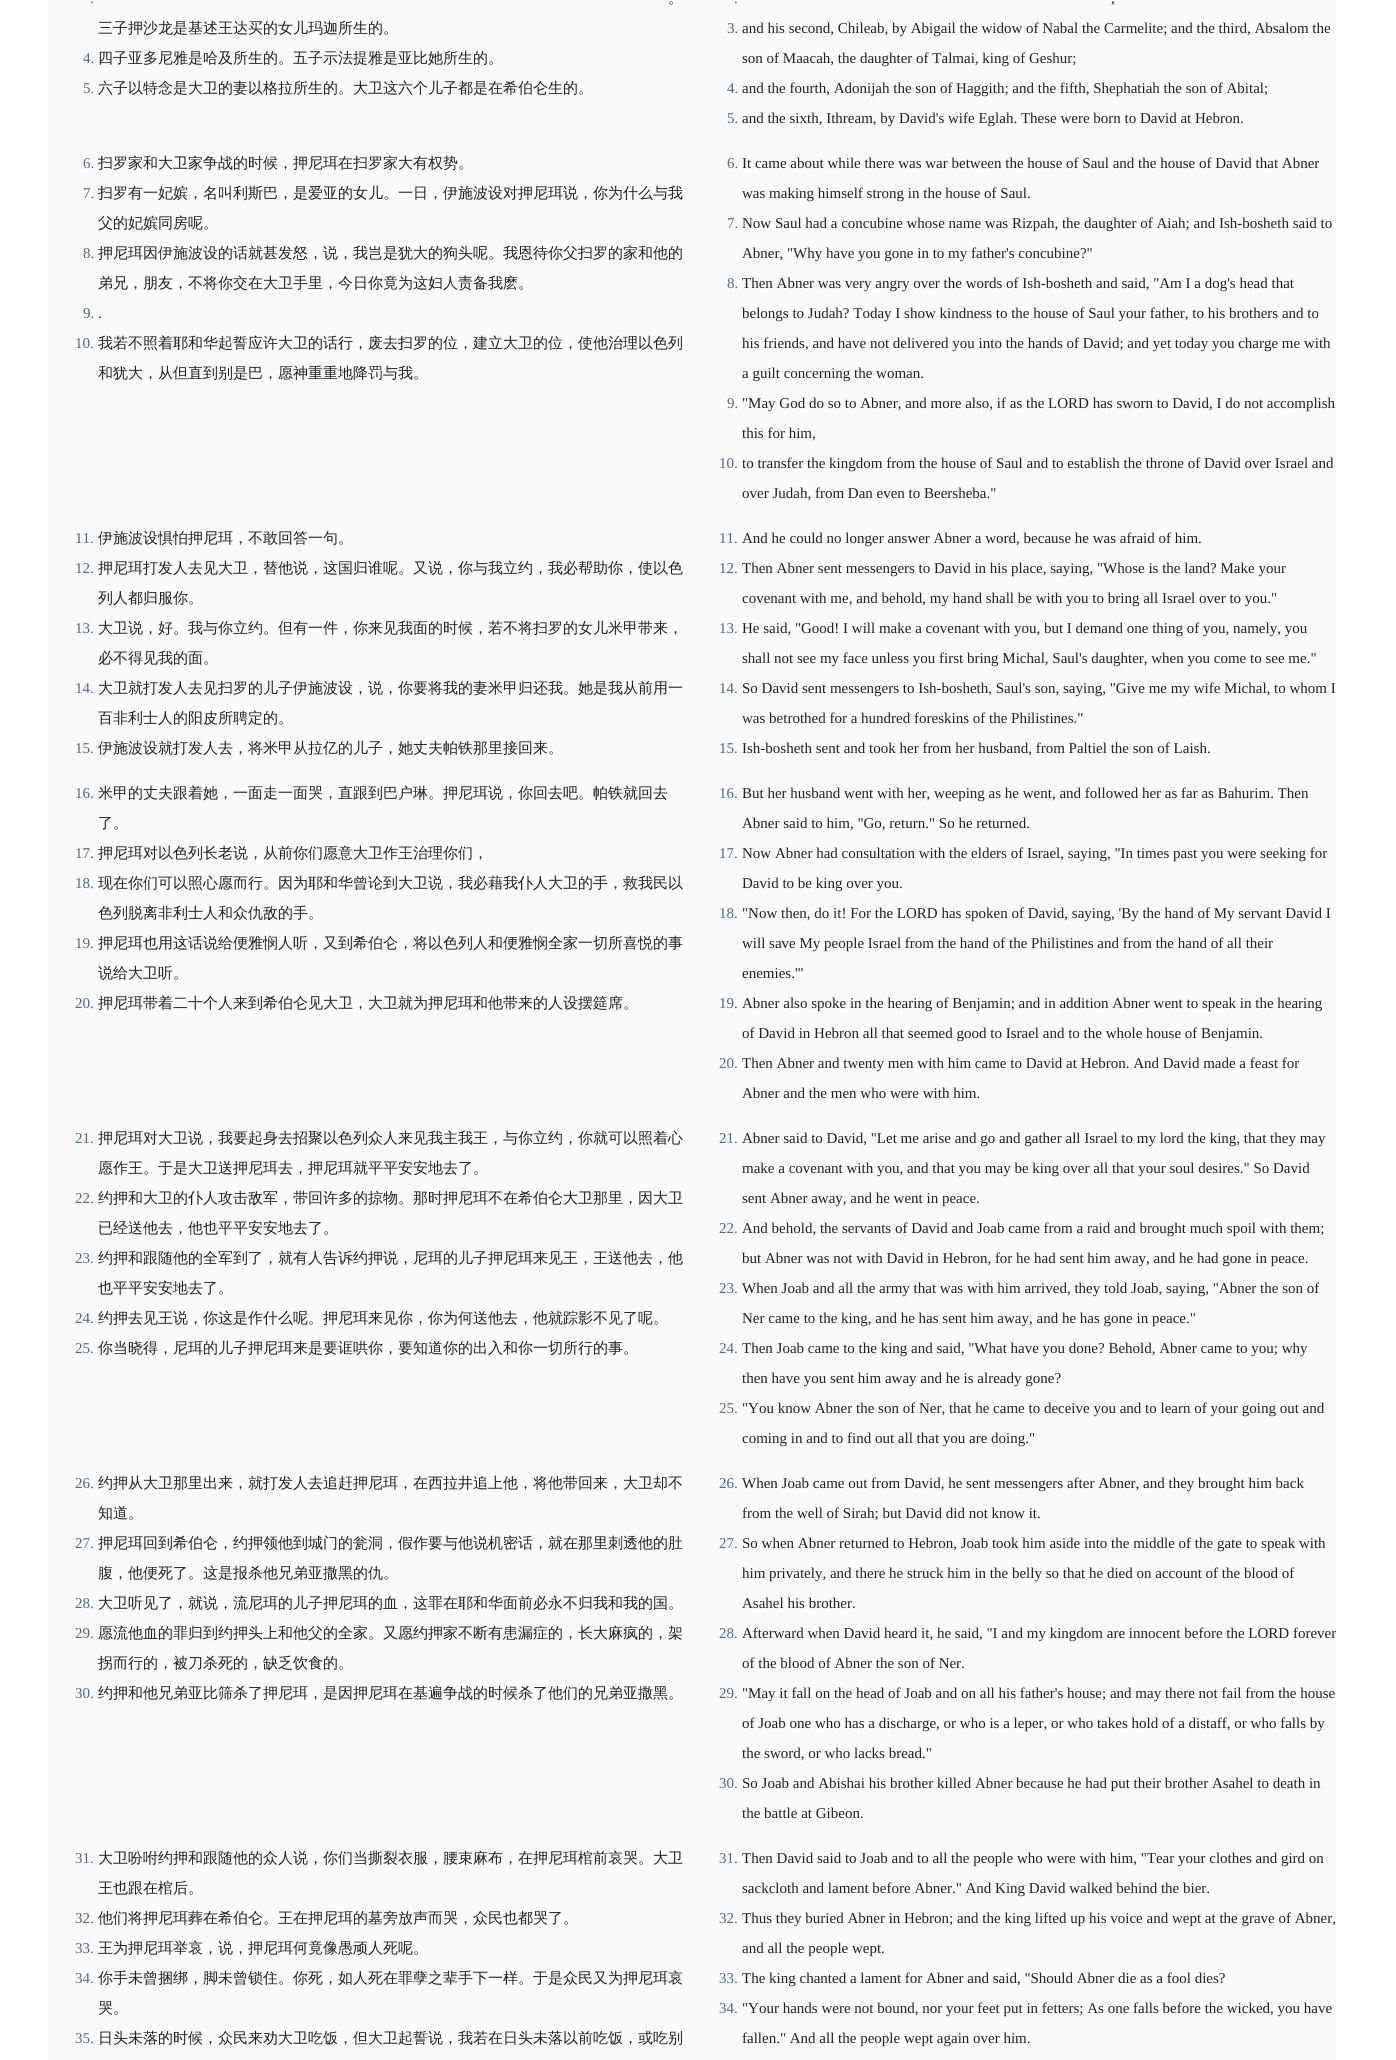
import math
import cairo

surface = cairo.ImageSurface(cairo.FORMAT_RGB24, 1396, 2060)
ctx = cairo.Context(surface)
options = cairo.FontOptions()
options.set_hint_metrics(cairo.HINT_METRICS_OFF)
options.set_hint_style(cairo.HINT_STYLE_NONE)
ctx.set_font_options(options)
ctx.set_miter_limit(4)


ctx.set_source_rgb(1, 1, 1)
ctx.paint()
ctx.set_source_rgb(0.98, 0.98, 0.98)
ctx.rectangle(48, 0, 1288, 2060)
ctx.fill()
ctx.select_font_face("Liberation Serif")
ctx.set_font_size(15)
ctx.set_source_rgb(0.333, 0.404, 0.467)
ctx.move_to(90, 3)
ctx.show_text(".")
ctx.select_font_face("WenQuanYi Zen Hei Medium")
ctx.set_source_rgb(0.125, 0.125, 0.125)
ctx.move_to(668, 3)
ctx.show_text("。")
ctx.move_to(98, 33)
ctx.show_text("三子押沙龙是基述王达买的女儿玛迦所生的。")
ctx.select_font_face("Liberation Serif")
ctx.set_source_rgb(0.333, 0.404, 0.467)
ctx.move_to(83, 63)
ctx.show_text("4.")
ctx.select_font_face("WenQuanYi Zen Hei Medium")
ctx.set_source_rgb(0.125, 0.125, 0.125)
ctx.move_to(98, 63)
ctx.show_text("四子亚多尼雅是哈及所生的。五子示法提雅是亚比她所生的。")
ctx.select_font_face("Liberation Serif")
ctx.set_source_rgb(0.333, 0.404, 0.467)
ctx.move_to(83, 93)
ctx.show_text("5.")
ctx.select_font_face("WenQuanYi Zen Hei Medium")
ctx.set_source_rgb(0.125, 0.125, 0.125)
ctx.move_to(98, 93)
ctx.show_text("六子以特念是大卫的妻以格拉所生的。大卫这六个儿子都是在希伯仑生的。")
ctx.select_font_face("Liberation Serif")
ctx.set_source_rgb(0.333, 0.404, 0.467)
ctx.move_to(734, 3)
ctx.show_text(".")
ctx.set_source_rgb(0.125, 0.125, 0.125)
ctx.move_to(1111, 3)
ctx.show_text(",")
ctx.set_source_rgb(0.333, 0.404, 0.467)
ctx.move_to(727, 33)
ctx.show_text("3.")
ctx.set_source_rgb(0.125, 0.125, 0.125)
ctx.move_to(742, 33)
ctx.show_text("and his second, Chileab, by Abigail the widow of Nabal the Carmelite; and the third, Absalom the")
ctx.move_to(742, 63)
ctx.show_text("son of Maacah, the daughter of Talmai, king of Geshur;")
ctx.set_source_rgb(0.333, 0.404, 0.467)
ctx.move_to(727, 93)
ctx.show_text("4.")
ctx.set_source_rgb(0.125, 0.125, 0.125)
ctx.move_to(742, 93)
ctx.show_text("and the fourth, Adonijah the son of Haggith; and the fifth, Shephatiah the son of Abital;")
ctx.set_source_rgb(0.333, 0.404, 0.467)
ctx.move_to(727, 123)
ctx.show_text("5.")
ctx.set_source_rgb(0.125, 0.125, 0.125)
ctx.move_to(742, 123)
ctx.show_text("and the sixth, Ithream, by David's wife Eglah. These were born to David at Hebron.")
ctx.set_source_rgb(0.333, 0.404, 0.467)
ctx.move_to(83, 168)
ctx.show_text("6.")
ctx.select_font_face("WenQuanYi Zen Hei Medium")
ctx.set_source_rgb(0.125, 0.125, 0.125)
ctx.move_to(98, 168)
ctx.show_text("扫罗家和大卫家争战的时候，押尼珥在扫罗家大有权势。")
ctx.select_font_face("Liberation Serif")
ctx.set_source_rgb(0.333, 0.404, 0.467)
ctx.move_to(83, 198)
ctx.show_text("7.")
ctx.select_font_face("WenQuanYi Zen Hei Medium")
ctx.set_source_rgb(0.125, 0.125, 0.125)
ctx.move_to(98, 198)
ctx.show_text("扫罗有一妃嫔，名叫利斯巴，是爱亚的女儿。一日，伊施波设对押尼珥说，你为什么与我")
ctx.move_to(98, 228)
ctx.show_text("父的妃嫔同房呢。")
ctx.select_font_face("Liberation Serif")
ctx.set_source_rgb(0.333, 0.404, 0.467)
ctx.move_to(83, 258)
ctx.show_text("8.")
ctx.select_font_face("WenQuanYi Zen Hei Medium")
ctx.set_source_rgb(0.125, 0.125, 0.125)
ctx.move_to(98, 258)
ctx.show_text("押尼珥因伊施波设的话就甚发怒，说，我岂是犹大的狗头呢。我恩待你父扫罗的家和他的")
ctx.move_to(98, 288)
ctx.show_text("弟兄，朋友，不将你交在大卫手里，今日你竟为这妇人责备我麽。")
ctx.select_font_face("Liberation Serif")
ctx.set_source_rgb(0.333, 0.404, 0.467)
ctx.move_to(83, 318)
ctx.show_text("9.")
ctx.set_source_rgb(0.125, 0.125, 0.125)
ctx.move_to(98, 318)
ctx.show_text(".")
ctx.set_source_rgb(0.333, 0.404, 0.467)
ctx.move_to(75, 348)
ctx.show_text("10.")
ctx.select_font_face("WenQuanYi Zen Hei Medium")
ctx.set_source_rgb(0.125, 0.125, 0.125)
ctx.move_to(98, 348)
ctx.show_text("我若不照着耶和华起誓应许大卫的话行，废去扫罗的位，建立大卫的位，使他治理以色列")
ctx.move_to(98, 378)
ctx.show_text("和犹大，从但直到别是巴，愿神重重地降罚与我。")
ctx.select_font_face("Liberation Serif")
ctx.set_source_rgb(0.333, 0.404, 0.467)
ctx.move_to(727, 168)
ctx.show_text("6.")
ctx.set_source_rgb(0.125, 0.125, 0.125)
ctx.move_to(742, 168)
ctx.show_text("It came about while there was war between the house of Saul and the house of David that Abner")
ctx.move_to(742, 198)
ctx.show_text("was making himself strong in the house of Saul.")
ctx.set_source_rgb(0.333, 0.404, 0.467)
ctx.move_to(727, 228)
ctx.show_text("7.")
ctx.set_source_rgb(0.125, 0.125, 0.125)
ctx.move_to(742, 228)
ctx.show_text("Now Saul had a concubine whose name was Rizpah, the daughter of Aiah; and Ish-bosheth said to")
ctx.move_to(742, 258)
ctx.show_text("Abner, \"Why have you gone in to my father's concubine?\"")
ctx.set_source_rgb(0.333, 0.404, 0.467)
ctx.move_to(727, 288)
ctx.show_text("8.")
ctx.set_source_rgb(0.125, 0.125, 0.125)
ctx.move_to(742, 288)
ctx.show_text("Then Abner was very angry over the words of Ish-bosheth and said, \"Am I a dog's head that")
ctx.move_to(742, 318)
ctx.show_text("belongs to Judah? Today I show kindness to the house of Saul your father, to his brothers and to")
ctx.move_to(742, 348)
ctx.show_text("his friends, and have not delivered you into the hands of David; and yet today you charge me with")
ctx.move_to(742, 378)
ctx.show_text("a guilt concerning the woman.")
ctx.set_source_rgb(0.333, 0.404, 0.467)
ctx.move_to(727, 408)
ctx.show_text("9.")
ctx.set_source_rgb(0.125, 0.125, 0.125)
ctx.move_to(742, 408)
ctx.show_text("\"May God do so to Abner, and more also, if as the LORD has sworn to David, I do not accomplish")
ctx.move_to(742, 438)
ctx.show_text("this for him,")
ctx.set_source_rgb(0.333, 0.404, 0.467)
ctx.move_to(719, 468)
ctx.show_text("10.")
ctx.set_source_rgb(0.125, 0.125, 0.125)
ctx.move_to(742, 468)
ctx.show_text("to transfer the kingdom from the house of Saul and to establish the throne of David over Israel and")
ctx.move_to(742, 498)
ctx.show_text("over Judah, from Dan even to Beersheba.\"")
ctx.set_source_rgb(0.333, 0.404, 0.467)
ctx.move_to(75, 543)
ctx.show_text("11.")
ctx.select_font_face("WenQuanYi Zen Hei Medium")
ctx.set_source_rgb(0.125, 0.125, 0.125)
ctx.move_to(98, 543)
ctx.show_text("伊施波设惧怕押尼珥，不敢回答一句。")
ctx.select_font_face("Liberation Serif")
ctx.set_source_rgb(0.333, 0.404, 0.467)
ctx.move_to(75, 573)
ctx.show_text("12.")
ctx.select_font_face("WenQuanYi Zen Hei Medium")
ctx.set_source_rgb(0.125, 0.125, 0.125)
ctx.move_to(98, 573)
ctx.show_text("押尼珥打发人去见大卫，替他说，这国归谁呢。又说，你与我立约，我必帮助你，使以色")
ctx.move_to(98, 603)
ctx.show_text("列人都归服你。")
ctx.select_font_face("Liberation Serif")
ctx.set_source_rgb(0.333, 0.404, 0.467)
ctx.move_to(75, 633)
ctx.show_text("13.")
ctx.select_font_face("WenQuanYi Zen Hei Medium")
ctx.set_source_rgb(0.125, 0.125, 0.125)
ctx.move_to(98, 633)
ctx.show_text("大卫说，好。我与你立约。但有一件，你来见我面的时候，若不将扫罗的女儿米甲带来，")
ctx.move_to(98, 663)
ctx.show_text("必不得见我的面。")
ctx.select_font_face("Liberation Serif")
ctx.set_source_rgb(0.333, 0.404, 0.467)
ctx.move_to(75, 693)
ctx.show_text("14.")
ctx.select_font_face("WenQuanYi Zen Hei Medium")
ctx.set_source_rgb(0.125, 0.125, 0.125)
ctx.move_to(98, 693)
ctx.show_text("大卫就打发人去见扫罗的儿子伊施波设，说，你要将我的妻米甲归还我。她是我从前用一")
ctx.move_to(98, 723)
ctx.show_text("百非利士人的阳皮所聘定的。")
ctx.select_font_face("Liberation Serif")
ctx.set_source_rgb(0.333, 0.404, 0.467)
ctx.move_to(75, 753)
ctx.show_text("15.")
ctx.select_font_face("WenQuanYi Zen Hei Medium")
ctx.set_source_rgb(0.125, 0.125, 0.125)
ctx.move_to(98, 753)
ctx.show_text("伊施波设就打发人去，将米甲从拉亿的儿子，她丈夫帕铁那里接回来。")
ctx.select_font_face("Liberation Serif")
ctx.set_source_rgb(0.333, 0.404, 0.467)
ctx.move_to(719, 543)
ctx.show_text("11.")
ctx.set_source_rgb(0.125, 0.125, 0.125)
ctx.move_to(742, 543)
ctx.show_text("And he could no longer answer Abner a word, because he was afraid of him.")
ctx.set_source_rgb(0.333, 0.404, 0.467)
ctx.move_to(719, 573)
ctx.show_text("12.")
ctx.set_source_rgb(0.125, 0.125, 0.125)
ctx.move_to(742, 573)
ctx.show_text("Then Abner sent messengers to David in his place, saying, \"Whose is the land? Make your")
ctx.move_to(742, 603)
ctx.show_text("covenant with me, and behold, my hand shall be with you to bring all Israel over to you.\"")
ctx.set_source_rgb(0.333, 0.404, 0.467)
ctx.move_to(719, 633)
ctx.show_text("13.")
ctx.set_source_rgb(0.125, 0.125, 0.125)
ctx.move_to(742, 633)
ctx.show_text("He said, \"Good! I will make a covenant with you, but I demand one thing of you, namely, you")
ctx.move_to(742, 663)
ctx.show_text("shall not see my face unless you first bring Michal, Saul's daughter, when you come to see me.\"")
ctx.set_source_rgb(0.333, 0.404, 0.467)
ctx.move_to(719, 693)
ctx.show_text("14.")
ctx.set_source_rgb(0.125, 0.125, 0.125)
ctx.move_to(742, 693)
ctx.show_text("So David sent messengers to Ish-bosheth, Saul's son, saying, \"Give me my wife Michal, to whom I")
ctx.move_to(742, 723)
ctx.show_text("was betrothed for a hundred foreskins of the Philistines.\"")
ctx.set_source_rgb(0.333, 0.404, 0.467)
ctx.move_to(719, 753)
ctx.show_text("15.")
ctx.set_source_rgb(0.125, 0.125, 0.125)
ctx.move_to(742, 753)
ctx.show_text("Ish-bosheth sent and took her from her husband, from Paltiel the son of Laish.")
ctx.set_source_rgb(0.333, 0.404, 0.467)
ctx.move_to(75, 798)
ctx.show_text("16.")
ctx.select_font_face("WenQuanYi Zen Hei Medium")
ctx.set_source_rgb(0.125, 0.125, 0.125)
ctx.move_to(98, 798)
ctx.show_text("米甲的丈夫跟着她，一面走一面哭，直跟到巴户琳。押尼珥说，你回去吧。帕铁就回去")
ctx.move_to(98, 828)
ctx.show_text("了。")
ctx.select_font_face("Liberation Serif")
ctx.set_source_rgb(0.333, 0.404, 0.467)
ctx.move_to(75, 858)
ctx.show_text("17.")
ctx.select_font_face("WenQuanYi Zen Hei Medium")
ctx.set_source_rgb(0.125, 0.125, 0.125)
ctx.move_to(98, 858)
ctx.show_text("押尼珥对以色列长老说，从前你们愿意大卫作王治理你们，")
ctx.select_font_face("Liberation Serif")
ctx.set_source_rgb(0.333, 0.404, 0.467)
ctx.move_to(75, 888)
ctx.show_text("18.")
ctx.select_font_face("WenQuanYi Zen Hei Medium")
ctx.set_source_rgb(0.125, 0.125, 0.125)
ctx.move_to(98, 888)
ctx.show_text("现在你们可以照心愿而行。因为耶和华曾论到大卫说，我必藉我仆人大卫的手，救我民以")
ctx.move_to(98, 918)
ctx.show_text("色列脱离非利士人和众仇敌的手。")
ctx.select_font_face("Liberation Serif")
ctx.set_source_rgb(0.333, 0.404, 0.467)
ctx.move_to(75, 948)
ctx.show_text("19.")
ctx.select_font_face("WenQuanYi Zen Hei Medium")
ctx.set_source_rgb(0.125, 0.125, 0.125)
ctx.move_to(98, 948)
ctx.show_text("押尼珥也用这话说给便雅悯人听，又到希伯仑，将以色列人和便雅悯全家一切所喜悦的事")
ctx.move_to(98, 978)
ctx.show_text("说给大卫听。")
ctx.select_font_face("Liberation Serif")
ctx.set_source_rgb(0.333, 0.404, 0.467)
ctx.move_to(75, 1008)
ctx.show_text("20.")
ctx.select_font_face("WenQuanYi Zen Hei Medium")
ctx.set_source_rgb(0.125, 0.125, 0.125)
ctx.move_to(98, 1008)
ctx.show_text("押尼珥带着二十个人来到希伯仑见大卫，大卫就为押尼珥和他带来的人设摆筵席。")
ctx.select_font_face("Liberation Serif")
ctx.set_source_rgb(0.333, 0.404, 0.467)
ctx.move_to(719, 798)
ctx.show_text("16.")
ctx.set_source_rgb(0.125, 0.125, 0.125)
ctx.move_to(742, 798)
ctx.show_text("But her husband went with her, weeping as he went, and followed her as far as Bahurim. Then")
ctx.move_to(742, 828)
ctx.show_text("Abner said to him, \"Go, return.\" So he returned.")
ctx.set_source_rgb(0.333, 0.404, 0.467)
ctx.move_to(719, 858)
ctx.show_text("17.")
ctx.set_source_rgb(0.125, 0.125, 0.125)
ctx.move_to(742, 858)
ctx.show_text("Now Abner had consultation with the elders of Israel, saying, \"In times past you were seeking for")
ctx.move_to(742, 888)
ctx.show_text("David to be king over you.")
ctx.set_source_rgb(0.333, 0.404, 0.467)
ctx.move_to(719, 918)
ctx.show_text("18.")
ctx.set_source_rgb(0.125, 0.125, 0.125)
ctx.move_to(742, 918)
ctx.show_text("\"Now then, do it! For the LORD has spoken of David, saying, 'By the hand of My servant David I")
ctx.move_to(742, 948)
ctx.show_text("will save My people Israel from the hand of the Philistines and from the hand of all their")
ctx.move_to(742, 978)
ctx.show_text("enemies.'\"")
ctx.set_source_rgb(0.333, 0.404, 0.467)
ctx.move_to(719, 1008)
ctx.show_text("19.")
ctx.set_source_rgb(0.125, 0.125, 0.125)
ctx.move_to(742, 1008)
ctx.show_text("Abner also spoke in the hearing of Benjamin; and in addition Abner went to speak in the hearing")
ctx.move_to(742, 1038)
ctx.show_text("of David in Hebron all that seemed good to Israel and to the whole house of Benjamin.")
ctx.set_source_rgb(0.333, 0.404, 0.467)
ctx.move_to(719, 1068)
ctx.show_text("20.")
ctx.set_source_rgb(0.125, 0.125, 0.125)
ctx.move_to(742, 1068)
ctx.show_text("Then Abner and twenty men with him came to David at Hebron. And David made a feast for")
ctx.move_to(742, 1098)
ctx.show_text("Abner and the men who were with him.")
ctx.set_source_rgb(0.333, 0.404, 0.467)
ctx.move_to(75, 1143)
ctx.show_text("21.")
ctx.select_font_face("WenQuanYi Zen Hei Medium")
ctx.set_source_rgb(0.125, 0.125, 0.125)
ctx.move_to(98, 1143)
ctx.show_text("押尼珥对大卫说，我要起身去招聚以色列众人来见我主我王，与你立约，你就可以照着心")
ctx.move_to(98, 1173)
ctx.show_text("愿作王。于是大卫送押尼珥去，押尼珥就平平安安地去了。")
ctx.select_font_face("Liberation Serif")
ctx.set_source_rgb(0.333, 0.404, 0.467)
ctx.move_to(75, 1203)
ctx.show_text("22.")
ctx.select_font_face("WenQuanYi Zen Hei Medium")
ctx.set_source_rgb(0.125, 0.125, 0.125)
ctx.move_to(98, 1203)
ctx.show_text("约押和大卫的仆人攻击敌军，带回许多的掠物。那时押尼珥不在希伯仑大卫那里，因大卫")
ctx.move_to(98, 1233)
ctx.show_text("已经送他去，他也平平安安地去了。")
ctx.select_font_face("Liberation Serif")
ctx.set_source_rgb(0.333, 0.404, 0.467)
ctx.move_to(75, 1263)
ctx.show_text("23.")
ctx.select_font_face("WenQuanYi Zen Hei Medium")
ctx.set_source_rgb(0.125, 0.125, 0.125)
ctx.move_to(98, 1263)
ctx.show_text("约押和跟随他的全军到了，就有人告诉约押说，尼珥的儿子押尼珥来见王，王送他去，他")
ctx.move_to(98, 1293)
ctx.show_text("也平平安安地去了。")
ctx.select_font_face("Liberation Serif")
ctx.set_source_rgb(0.333, 0.404, 0.467)
ctx.move_to(75, 1323)
ctx.show_text("24.")
ctx.select_font_face("WenQuanYi Zen Hei Medium")
ctx.set_source_rgb(0.125, 0.125, 0.125)
ctx.move_to(98, 1323)
ctx.show_text("约押去见王说，你这是作什么呢。押尼珥来见你，你为何送他去，他就踪影不见了呢。")
ctx.select_font_face("Liberation Serif")
ctx.set_source_rgb(0.333, 0.404, 0.467)
ctx.move_to(75, 1353)
ctx.show_text("25.")
ctx.select_font_face("WenQuanYi Zen Hei Medium")
ctx.set_source_rgb(0.125, 0.125, 0.125)
ctx.move_to(98, 1353)
ctx.show_text("你当晓得，尼珥的儿子押尼珥来是要诓哄你，要知道你的出入和你一切所行的事。")
ctx.select_font_face("Liberation Serif")
ctx.set_source_rgb(0.333, 0.404, 0.467)
ctx.move_to(719, 1143)
ctx.show_text("21.")
ctx.set_source_rgb(0.125, 0.125, 0.125)
ctx.move_to(742, 1143)
ctx.show_text("Abner said to David, \"Let me arise and go and gather all Israel to my lord the king, that they may")
ctx.move_to(742, 1173)
ctx.show_text("make a covenant with you, and that you may be king over all that your soul desires.\" So David")
ctx.move_to(742, 1203)
ctx.show_text("sent Abner away, and he went in peace.")
ctx.set_source_rgb(0.333, 0.404, 0.467)
ctx.move_to(719, 1233)
ctx.show_text("22.")
ctx.set_source_rgb(0.125, 0.125, 0.125)
ctx.move_to(742, 1233)
ctx.show_text("And behold, the servants of David and Joab came from a raid and brought much spoil with them;")
ctx.move_to(742, 1263)
ctx.show_text("but Abner was not with David in Hebron, for he had sent him away, and he had gone in peace.")
ctx.set_source_rgb(0.333, 0.404, 0.467)
ctx.move_to(719, 1293)
ctx.show_text("23.")
ctx.set_source_rgb(0.125, 0.125, 0.125)
ctx.move_to(742, 1293)
ctx.show_text("When Joab and all the army that was with him arrived, they told Joab, saying, \"Abner the son of")
ctx.move_to(742, 1323)
ctx.show_text("Ner came to the king, and he has sent him away, and he has gone in peace.\"")
ctx.set_source_rgb(0.333, 0.404, 0.467)
ctx.move_to(719, 1353)
ctx.show_text("24.")
ctx.set_source_rgb(0.125, 0.125, 0.125)
ctx.move_to(742, 1353)
ctx.show_text("Then Joab came to the king and said, \"What have you done? Behold, Abner came to you; why")
ctx.move_to(742, 1383)
ctx.show_text("then have you sent him away and he is already gone?")
ctx.set_source_rgb(0.333, 0.404, 0.467)
ctx.move_to(719, 1413)
ctx.show_text("25.")
ctx.set_source_rgb(0.125, 0.125, 0.125)
ctx.move_to(742, 1413)
ctx.show_text("\"You know Abner the son of Ner, that he came to deceive you and to learn of your going out and")
ctx.move_to(742, 1443)
ctx.show_text("coming in and to find out all that you are doing.\"")
ctx.set_source_rgb(0.333, 0.404, 0.467)
ctx.move_to(75, 1488)
ctx.show_text("26.")
ctx.select_font_face("WenQuanYi Zen Hei Medium")
ctx.set_source_rgb(0.125, 0.125, 0.125)
ctx.move_to(98, 1488)
ctx.show_text("约押从大卫那里出来，就打发人去追赶押尼珥，在西拉井追上他，将他带回来，大卫却不")
ctx.move_to(98, 1518)
ctx.show_text("知道。")
ctx.select_font_face("Liberation Serif")
ctx.set_source_rgb(0.333, 0.404, 0.467)
ctx.move_to(75, 1548)
ctx.show_text("27.")
ctx.select_font_face("WenQuanYi Zen Hei Medium")
ctx.set_source_rgb(0.125, 0.125, 0.125)
ctx.move_to(98, 1548)
ctx.show_text("押尼珥回到希伯仑，约押领他到城门的瓮洞，假作要与他说机密话，就在那里刺透他的肚")
ctx.move_to(98, 1578)
ctx.show_text("腹，他便死了。这是报杀他兄弟亚撒黑的仇。")
ctx.select_font_face("Liberation Serif")
ctx.set_source_rgb(0.333, 0.404, 0.467)
ctx.move_to(75, 1608)
ctx.show_text("28.")
ctx.select_font_face("WenQuanYi Zen Hei Medium")
ctx.set_source_rgb(0.125, 0.125, 0.125)
ctx.move_to(98, 1608)
ctx.show_text("大卫听见了，就说，流尼珥的儿子押尼珥的血，这罪在耶和华面前必永不归我和我的国。")
ctx.select_font_face("Liberation Serif")
ctx.set_source_rgb(0.333, 0.404, 0.467)
ctx.move_to(75, 1638)
ctx.show_text("29.")
ctx.select_font_face("WenQuanYi Zen Hei Medium")
ctx.set_source_rgb(0.125, 0.125, 0.125)
ctx.move_to(98, 1638)
ctx.show_text("愿流他血的罪归到约押头上和他父的全家。又愿约押家不断有患漏症的，长大麻疯的，架")
ctx.move_to(98, 1668)
ctx.show_text("拐而行的，被刀杀死的，缺乏饮食的。")
ctx.select_font_face("Liberation Serif")
ctx.set_source_rgb(0.333, 0.404, 0.467)
ctx.move_to(75, 1698)
ctx.show_text("30.")
ctx.select_font_face("WenQuanYi Zen Hei Medium")
ctx.set_source_rgb(0.125, 0.125, 0.125)
ctx.move_to(98, 1698)
ctx.show_text("约押和他兄弟亚比筛杀了押尼珥，是因押尼珥在基遍争战的时候杀了他们的兄弟亚撒黑。")
ctx.select_font_face("Liberation Serif")
ctx.set_source_rgb(0.333, 0.404, 0.467)
ctx.move_to(719, 1488)
ctx.show_text("26.")
ctx.set_source_rgb(0.125, 0.125, 0.125)
ctx.move_to(742, 1488)
ctx.show_text("When Joab came out from David, he sent messengers after Abner, and they brought him back")
ctx.move_to(742, 1518)
ctx.show_text("from the well of Sirah; but David did not know it.")
ctx.set_source_rgb(0.333, 0.404, 0.467)
ctx.move_to(719, 1548)
ctx.show_text("27.")
ctx.set_source_rgb(0.125, 0.125, 0.125)
ctx.move_to(742, 1548)
ctx.show_text("So when Abner returned to Hebron, Joab took him aside into the middle of the gate to speak with")
ctx.move_to(742, 1578)
ctx.show_text("him privately, and there he struck him in the belly so that he died on account of the blood of")
ctx.move_to(742, 1608)
ctx.show_text("Asahel his brother.")
ctx.set_source_rgb(0.333, 0.404, 0.467)
ctx.move_to(719, 1638)
ctx.show_text("28.")
ctx.set_source_rgb(0.125, 0.125, 0.125)
ctx.move_to(742, 1638)
ctx.show_text("Afterward when David heard it, he said, \"I and my kingdom are innocent before the LORD forever")
ctx.move_to(742, 1668)
ctx.show_text("of the blood of Abner the son of Ner.")
ctx.set_source_rgb(0.333, 0.404, 0.467)
ctx.move_to(719, 1698)
ctx.show_text("29.")
ctx.set_source_rgb(0.125, 0.125, 0.125)
ctx.move_to(742, 1698)
ctx.show_text("\"May it fall on the head of Joab and on all his father's house; and may there not fail from the house")
ctx.move_to(742, 1728)
ctx.show_text("of Joab one who has a discharge, or who is a leper, or who takes hold of a distaff, or who falls by")
ctx.move_to(742, 1758)
ctx.show_text("the sword, or who lacks bread.\"")
ctx.set_source_rgb(0.333, 0.404, 0.467)
ctx.move_to(719, 1788)
ctx.show_text("30.")
ctx.set_source_rgb(0.125, 0.125, 0.125)
ctx.move_to(742, 1788)
ctx.show_text("So Joab and Abishai his brother killed Abner because he had put their brother Asahel to death in")
ctx.move_to(742, 1818)
ctx.show_text("the battle at Gibeon.")
ctx.set_source_rgb(0.333, 0.404, 0.467)
ctx.move_to(75, 1863)
ctx.show_text("31.")
ctx.select_font_face("WenQuanYi Zen Hei Medium")
ctx.set_source_rgb(0.125, 0.125, 0.125)
ctx.move_to(98, 1863)
ctx.show_text("大卫吩咐约押和跟随他的众人说，你们当撕裂衣服，腰束麻布，在押尼珥棺前哀哭。大卫")
ctx.move_to(98, 1893)
ctx.show_text("王也跟在棺后。")
ctx.select_font_face("Liberation Serif")
ctx.set_source_rgb(0.333, 0.404, 0.467)
ctx.move_to(75, 1923)
ctx.show_text("32.")
ctx.select_font_face("WenQuanYi Zen Hei Medium")
ctx.set_source_rgb(0.125, 0.125, 0.125)
ctx.move_to(98, 1923)
ctx.show_text("他们将押尼珥葬在希伯仑。王在押尼珥的墓旁放声而哭，众民也都哭了。")
ctx.select_font_face("Liberation Serif")
ctx.set_source_rgb(0.333, 0.404, 0.467)
ctx.move_to(75, 1953)
ctx.show_text("33.")
ctx.select_font_face("WenQuanYi Zen Hei Medium")
ctx.set_source_rgb(0.125, 0.125, 0.125)
ctx.move_to(98, 1953)
ctx.show_text("王为押尼珥举哀，说，押尼珥何竟像愚顽人死呢。")
ctx.select_font_face("Liberation Serif")
ctx.set_source_rgb(0.333, 0.404, 0.467)
ctx.move_to(75, 1983)
ctx.show_text("34.")
ctx.select_font_face("WenQuanYi Zen Hei Medium")
ctx.set_source_rgb(0.125, 0.125, 0.125)
ctx.move_to(98, 1983)
ctx.show_text("你手未曾捆绑，脚未曾锁住。你死，如人死在罪孽之辈手下一样。于是众民又为押尼珥哀")
ctx.move_to(98, 2013)
ctx.show_text("哭。")
ctx.select_font_face("Liberation Serif")
ctx.set_source_rgb(0.333, 0.404, 0.467)
ctx.move_to(75, 2043)
ctx.show_text("35.")
ctx.select_font_face("WenQuanYi Zen Hei Medium")
ctx.set_source_rgb(0.125, 0.125, 0.125)
ctx.move_to(98, 2043)
ctx.show_text("日头未落的时候，众民来劝大卫吃饭，但大卫起誓说，我若在日头未落以前吃饭，或吃别")
ctx.select_font_face("Liberation Serif")
ctx.set_source_rgb(0.333, 0.404, 0.467)
ctx.move_to(719, 1863)
ctx.show_text("31.")
ctx.set_source_rgb(0.125, 0.125, 0.125)
ctx.move_to(742, 1863)
ctx.show_text("Then David said to Joab and to all the people who were with him, \"Tear your clothes and gird on")
ctx.move_to(742, 1893)
ctx.show_text("sackcloth and lament before Abner.\" And King David walked behind the bier.")
ctx.set_source_rgb(0.333, 0.404, 0.467)
ctx.move_to(719, 1923)
ctx.show_text("32.")
ctx.set_source_rgb(0.125, 0.125, 0.125)
ctx.move_to(742, 1923)
ctx.show_text("Thus they buried Abner in Hebron; and the king lifted up his voice and wept at the grave of Abner,")
ctx.move_to(742, 1953)
ctx.show_text("and all the people wept.")
ctx.set_source_rgb(0.333, 0.404, 0.467)
ctx.move_to(719, 1983)
ctx.show_text("33.")
ctx.set_source_rgb(0.125, 0.125, 0.125)
ctx.move_to(742, 1983)
ctx.show_text("The king chanted a lament for Abner and said, \"Should Abner die as a fool dies?")
ctx.set_source_rgb(0.333, 0.404, 0.467)
ctx.move_to(719, 2013)
ctx.show_text("34.")
ctx.set_source_rgb(0.125, 0.125, 0.125)
ctx.move_to(742, 2013)
ctx.show_text("\"Your hands were not bound, nor your feet put in fetters; As one falls before the wicked, you have")
ctx.move_to(742, 2043)
ctx.show_text("fallen.\" And all the people wept again over him.")
surface.write_to_png("page.png")
